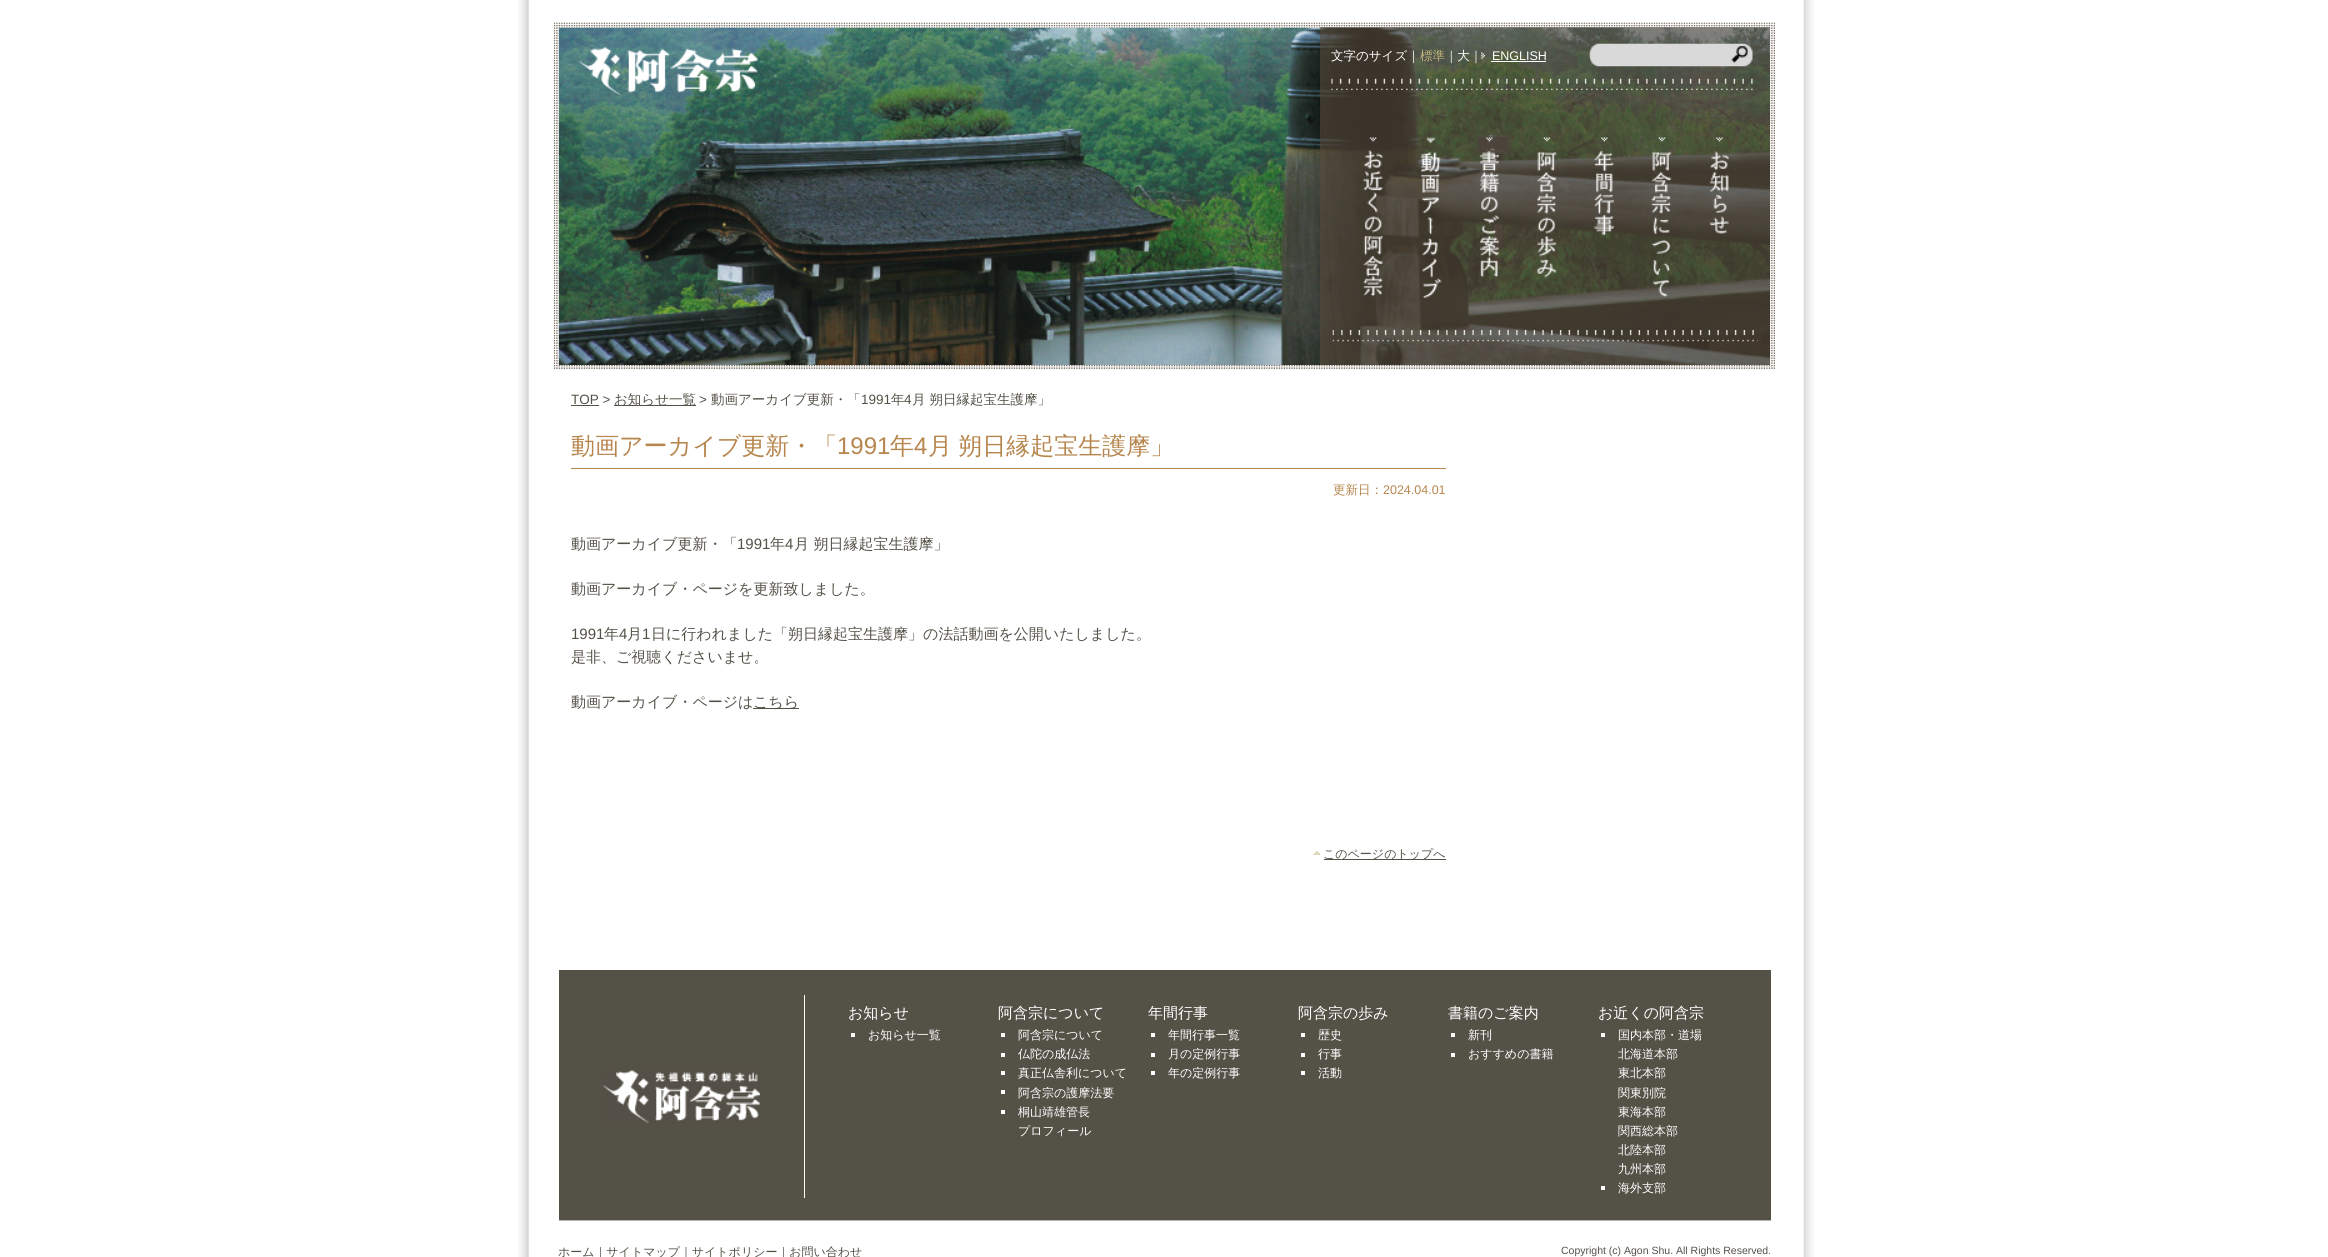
import math
import cairo

surface = cairo.ImageSurface(cairo.FORMAT_RGB24, 2328, 1257)
ctx = cairo.Context(surface)
options = cairo.FontOptions()
options.set_hint_metrics(cairo.HINT_METRICS_OFF)
options.set_hint_style(cairo.HINT_STYLE_NONE)
ctx.set_font_options(options)
ctx.set_miter_limit(4)


def spaced_text(x, y, s, letter, word):
    ctx.move_to(x, y)
    for ch in s:
        ctx.show_text(ch)
        ctx.rel_move_to(letter + word * (ch == ' '), 0)


def picture(path, x, y, w, h):
    ctx.save()
    ctx.set_source_surface(cairo.ImageSurface.create_from_png(path), x, y)
    ctx.rectangle(x, y, w, h)
    ctx.fill()
    ctx.restore()


ctx.set_source_rgb(1, 1, 1)
ctx.paint()
picture("img1.png", 518, 0, 1296, 1257)
picture("img2.png", 553, 22, 1222, 348)
picture("img3.png", 558, 27, 1212, 338)
picture("img4.png", 578, 47, 180, 48)
ctx.set_source_rgba(0.353, 0.294, 0.235, 0.6)
ctx.rectangle(1320, 27, 450, 338)
ctx.fill()
picture("img5.png", 1331, 78, 426, 12)
ctx.select_font_face("WenQuanYi Zen Hei Medium")
ctx.set_font_size(12.5)
ctx.set_source_rgb(1, 1, 1)
ctx.move_to(1331, 60)
ctx.show_text("文字のサイズ｜")
ctx.set_source_rgb(0.761, 0.714, 0.486)
ctx.move_to(1420, 60)
ctx.show_text("標準")
ctx.set_source_rgb(1, 1, 1)
ctx.move_to(1445, 60)
ctx.show_text("｜大｜")
picture("img6.png", 1481, 52, 4, 7)
ctx.select_font_face("Liberation Sans")
ctx.move_to(1492, 60)
ctx.show_text("ENGLISH")
ctx.rectangle(1491, 61, 55, 1)
ctx.fill()
picture("img7.png", 1588, 43, 165, 24)
picture("img8.png", 1731, 46, 17, 17)
picture("img9.png", 1332, 330, 426, 12)
picture("img10.png", 1362, 137, 21, 160)
picture("img11.png", 1420, 137, 22, 161)
picture("img12.png", 1479, 137, 20, 140)
picture("img13.png", 1536, 137, 21, 141)
picture("img14.png", 1593, 137, 21, 99)
picture("img15.png", 1651, 137, 21, 160)
picture("img16.png", 1709, 137, 20, 97)
ctx.set_font_size(13.5)
ctx.set_source_rgb(0.329, 0.318, 0.278)
ctx.move_to(571, 404)
ctx.show_text("TOP >")
ctx.rectangle(571, 405, 28, 1)
ctx.fill()
ctx.rectangle(614, 405, 82, 1)
ctx.fill()
ctx.select_font_face("WenQuanYi Zen Hei Medium")
ctx.move_to(614, 404)
ctx.show_text("お知らせ一覧")
ctx.select_font_face("Liberation Sans")
ctx.move_to(699, 404)
ctx.show_text(">")
ctx.select_font_face("WenQuanYi Zen Hei Medium")
ctx.move_to(711, 404)
ctx.show_text("動画アーカイブ更新・「")
ctx.select_font_face("Liberation Sans")
ctx.move_to(861, 404)
ctx.show_text("1991")
ctx.select_font_face("WenQuanYi Zen Hei Medium")
ctx.move_to(891, 404)
ctx.show_text("年")
ctx.select_font_face("Liberation Sans")
ctx.move_to(904, 404)
ctx.show_text("4")
ctx.select_font_face("WenQuanYi Zen Hei Medium")
ctx.move_to(912, 404)
ctx.show_text("月 朔日縁起宝生護摩」")
ctx.set_source_rgb(0.718, 0.525, 0.306)
ctx.rectangle(571, 468, 875, 1)
ctx.fill()
ctx.set_font_size(24)
ctx.move_to(571, 454)
ctx.show_text("動画アーカイブ更新・「")
ctx.select_font_face("Liberation Sans")
ctx.move_to(837, 454)
ctx.show_text("1991")
ctx.select_font_face("WenQuanYi Zen Hei Medium")
ctx.move_to(890, 454)
ctx.show_text("年")
ctx.select_font_face("Liberation Sans")
ctx.move_to(914, 454)
ctx.show_text("4")
ctx.select_font_face("WenQuanYi Zen Hei Medium")
spaced_text(928, 454, "月 朔日縁起宝生護摩」", 0, -1)
ctx.set_font_size(12.5)
ctx.move_to(1333, 494)
ctx.show_text("更新日：")
ctx.select_font_face("Liberation Sans")
ctx.move_to(1383, 494)
ctx.show_text("2024.04.01")
ctx.select_font_face("WenQuanYi Zen Hei Medium")
ctx.set_font_size(15)
ctx.set_source_rgb(0.329, 0.318, 0.278)
ctx.move_to(571, 549)
ctx.show_text("動画アーカイブ更新・「")
ctx.select_font_face("Liberation Sans")
ctx.move_to(737, 549)
ctx.show_text("1991")
ctx.select_font_face("WenQuanYi Zen Hei Medium")
ctx.move_to(770, 549)
ctx.show_text("年")
ctx.select_font_face("Liberation Sans")
ctx.move_to(785, 549)
ctx.show_text("4")
ctx.select_font_face("WenQuanYi Zen Hei Medium")
ctx.move_to(794, 549)
ctx.show_text("月 朔日縁起宝生護摩」")
ctx.move_to(571, 594)
ctx.show_text("動画アーカイブ・ページを更新致しました。")
ctx.select_font_face("Liberation Sans")
ctx.move_to(571, 639)
ctx.show_text("1991")
ctx.select_font_face("WenQuanYi Zen Hei Medium")
ctx.move_to(604, 639)
ctx.show_text("年")
ctx.select_font_face("Liberation Sans")
ctx.move_to(619, 639)
ctx.show_text("4")
ctx.select_font_face("WenQuanYi Zen Hei Medium")
ctx.move_to(627, 639)
ctx.show_text("月")
ctx.select_font_face("Liberation Sans")
ctx.move_to(642, 639)
ctx.show_text("1")
ctx.select_font_face("WenQuanYi Zen Hei Medium")
ctx.move_to(651, 639)
ctx.show_text("日に行われました「朔日縁起宝生護摩」の法話動画を公開いたしました。")
ctx.move_to(571, 662)
ctx.show_text("是非、ご視聴くださいませ。")
ctx.move_to(571, 707)
ctx.show_text("動画アーカイブ・ページは")
ctx.rectangle(753, 708, 46, 1)
ctx.fill()
ctx.move_to(753, 707)
ctx.show_text("こちら")
picture("img17.png", 1313, 851, 7, 4)
ctx.rectangle(1324, 859, 122, 1)
ctx.fill()
ctx.set_font_size(12)
ctx.move_to(1323, 858)
ctx.show_text("このページのトップへ")
ctx.rectangle(559, 970, 1212, 250)
ctx.fill()
ctx.set_source_rgb(1, 1, 1)
ctx.rectangle(804, 995, 1, 203)
ctx.fill()
picture("img18.png", 602, 1070, 158, 53)
ctx.set_font_size(15)
ctx.move_to(848, 1018)
ctx.show_text("お知らせ")
ctx.rectangle(851, 1033, 4, 4)
ctx.fill()
ctx.set_font_size(12)
ctx.move_to(868, 1039)
ctx.show_text("お知らせ一覧")
ctx.set_font_size(15)
ctx.move_to(998, 1018)
ctx.show_text("阿含宗について")
ctx.rectangle(1001, 1033, 4, 4)
ctx.fill()
ctx.set_font_size(12)
ctx.move_to(1018, 1039)
ctx.show_text("阿含宗について")
ctx.rectangle(1001, 1053, 4, 4)
ctx.fill()
ctx.move_to(1018, 1058)
ctx.show_text("仏陀の成仏法")
ctx.rectangle(1001, 1071, 4, 4)
ctx.fill()
ctx.move_to(1018, 1077)
ctx.show_text("真正仏舎利について")
ctx.rectangle(1001, 1090, 4, 4)
ctx.fill()
ctx.move_to(1018, 1097)
ctx.show_text("阿含宗の護摩法要")
ctx.rectangle(1001, 1110, 4, 4)
ctx.fill()
ctx.move_to(1018, 1116)
ctx.show_text("桐山靖雄管長")
ctx.move_to(1018, 1135)
ctx.show_text("プロフィール")
ctx.set_font_size(15)
ctx.move_to(1148, 1018)
ctx.show_text("年間行事")
ctx.rectangle(1151, 1033, 4, 4)
ctx.fill()
ctx.set_font_size(12)
ctx.move_to(1168, 1039)
ctx.show_text("年間行事一覧")
ctx.rectangle(1151, 1053, 4, 4)
ctx.fill()
ctx.move_to(1168, 1058)
ctx.show_text("月の定例行事")
ctx.rectangle(1151, 1071, 4, 4)
ctx.fill()
ctx.move_to(1168, 1077)
ctx.show_text("年の定例行事")
ctx.set_font_size(15)
ctx.move_to(1298, 1018)
ctx.show_text("阿含宗の歩み")
ctx.rectangle(1301, 1033, 4, 4)
ctx.fill()
ctx.set_font_size(12)
ctx.move_to(1318, 1039)
ctx.show_text("歴史")
ctx.rectangle(1301, 1053, 4, 4)
ctx.fill()
ctx.move_to(1318, 1058)
ctx.show_text("行事")
ctx.rectangle(1301, 1071, 4, 4)
ctx.fill()
ctx.move_to(1318, 1077)
ctx.show_text("活動")
ctx.set_font_size(15)
ctx.move_to(1448, 1018)
ctx.show_text("書籍のご案内")
ctx.rectangle(1451, 1033, 4, 4)
ctx.fill()
ctx.set_font_size(12)
ctx.move_to(1468, 1039)
ctx.show_text("新刊")
ctx.rectangle(1451, 1053, 4, 4)
ctx.fill()
ctx.move_to(1468, 1058)
ctx.show_text("おすすめの書籍")
ctx.set_font_size(15)
ctx.move_to(1598, 1018)
ctx.show_text("お近くの阿含宗")
ctx.rectangle(1601, 1033, 4, 4)
ctx.fill()
ctx.set_font_size(12)
ctx.move_to(1618, 1039)
ctx.show_text("国内本部・道場")
ctx.move_to(1618, 1058)
ctx.show_text("北海道本部")
ctx.move_to(1618, 1077)
ctx.show_text("東北本部")
ctx.move_to(1618, 1097)
ctx.show_text("関東別院")
ctx.move_to(1618, 1116)
ctx.show_text("東海本部")
ctx.move_to(1618, 1135)
ctx.show_text("関西総本部")
ctx.move_to(1618, 1154)
ctx.show_text("北陸本部")
ctx.move_to(1618, 1173)
ctx.show_text("九州本部")
ctx.rectangle(1601, 1186, 4, 4)
ctx.fill()
ctx.move_to(1618, 1192)
ctx.show_text("海外支部")
ctx.set_source_rgb(0.702, 0.702, 0.702)
ctx.rectangle(559, 1220, 1212, 1)
ctx.fill()
ctx.set_source_rgb(0.329, 0.318, 0.278)
ctx.move_to(558, 1256)
ctx.show_text("ホーム｜サイトマップ｜サイトポリシー｜お問い合わせ")
ctx.select_font_face("Liberation Sans")
ctx.set_font_size(10.5)
ctx.move_to(1561, 1254)
ctx.show_text("Copyright (c) Agon Shu. All Rights Reserved.")
surface.write_to_png("page.png")
